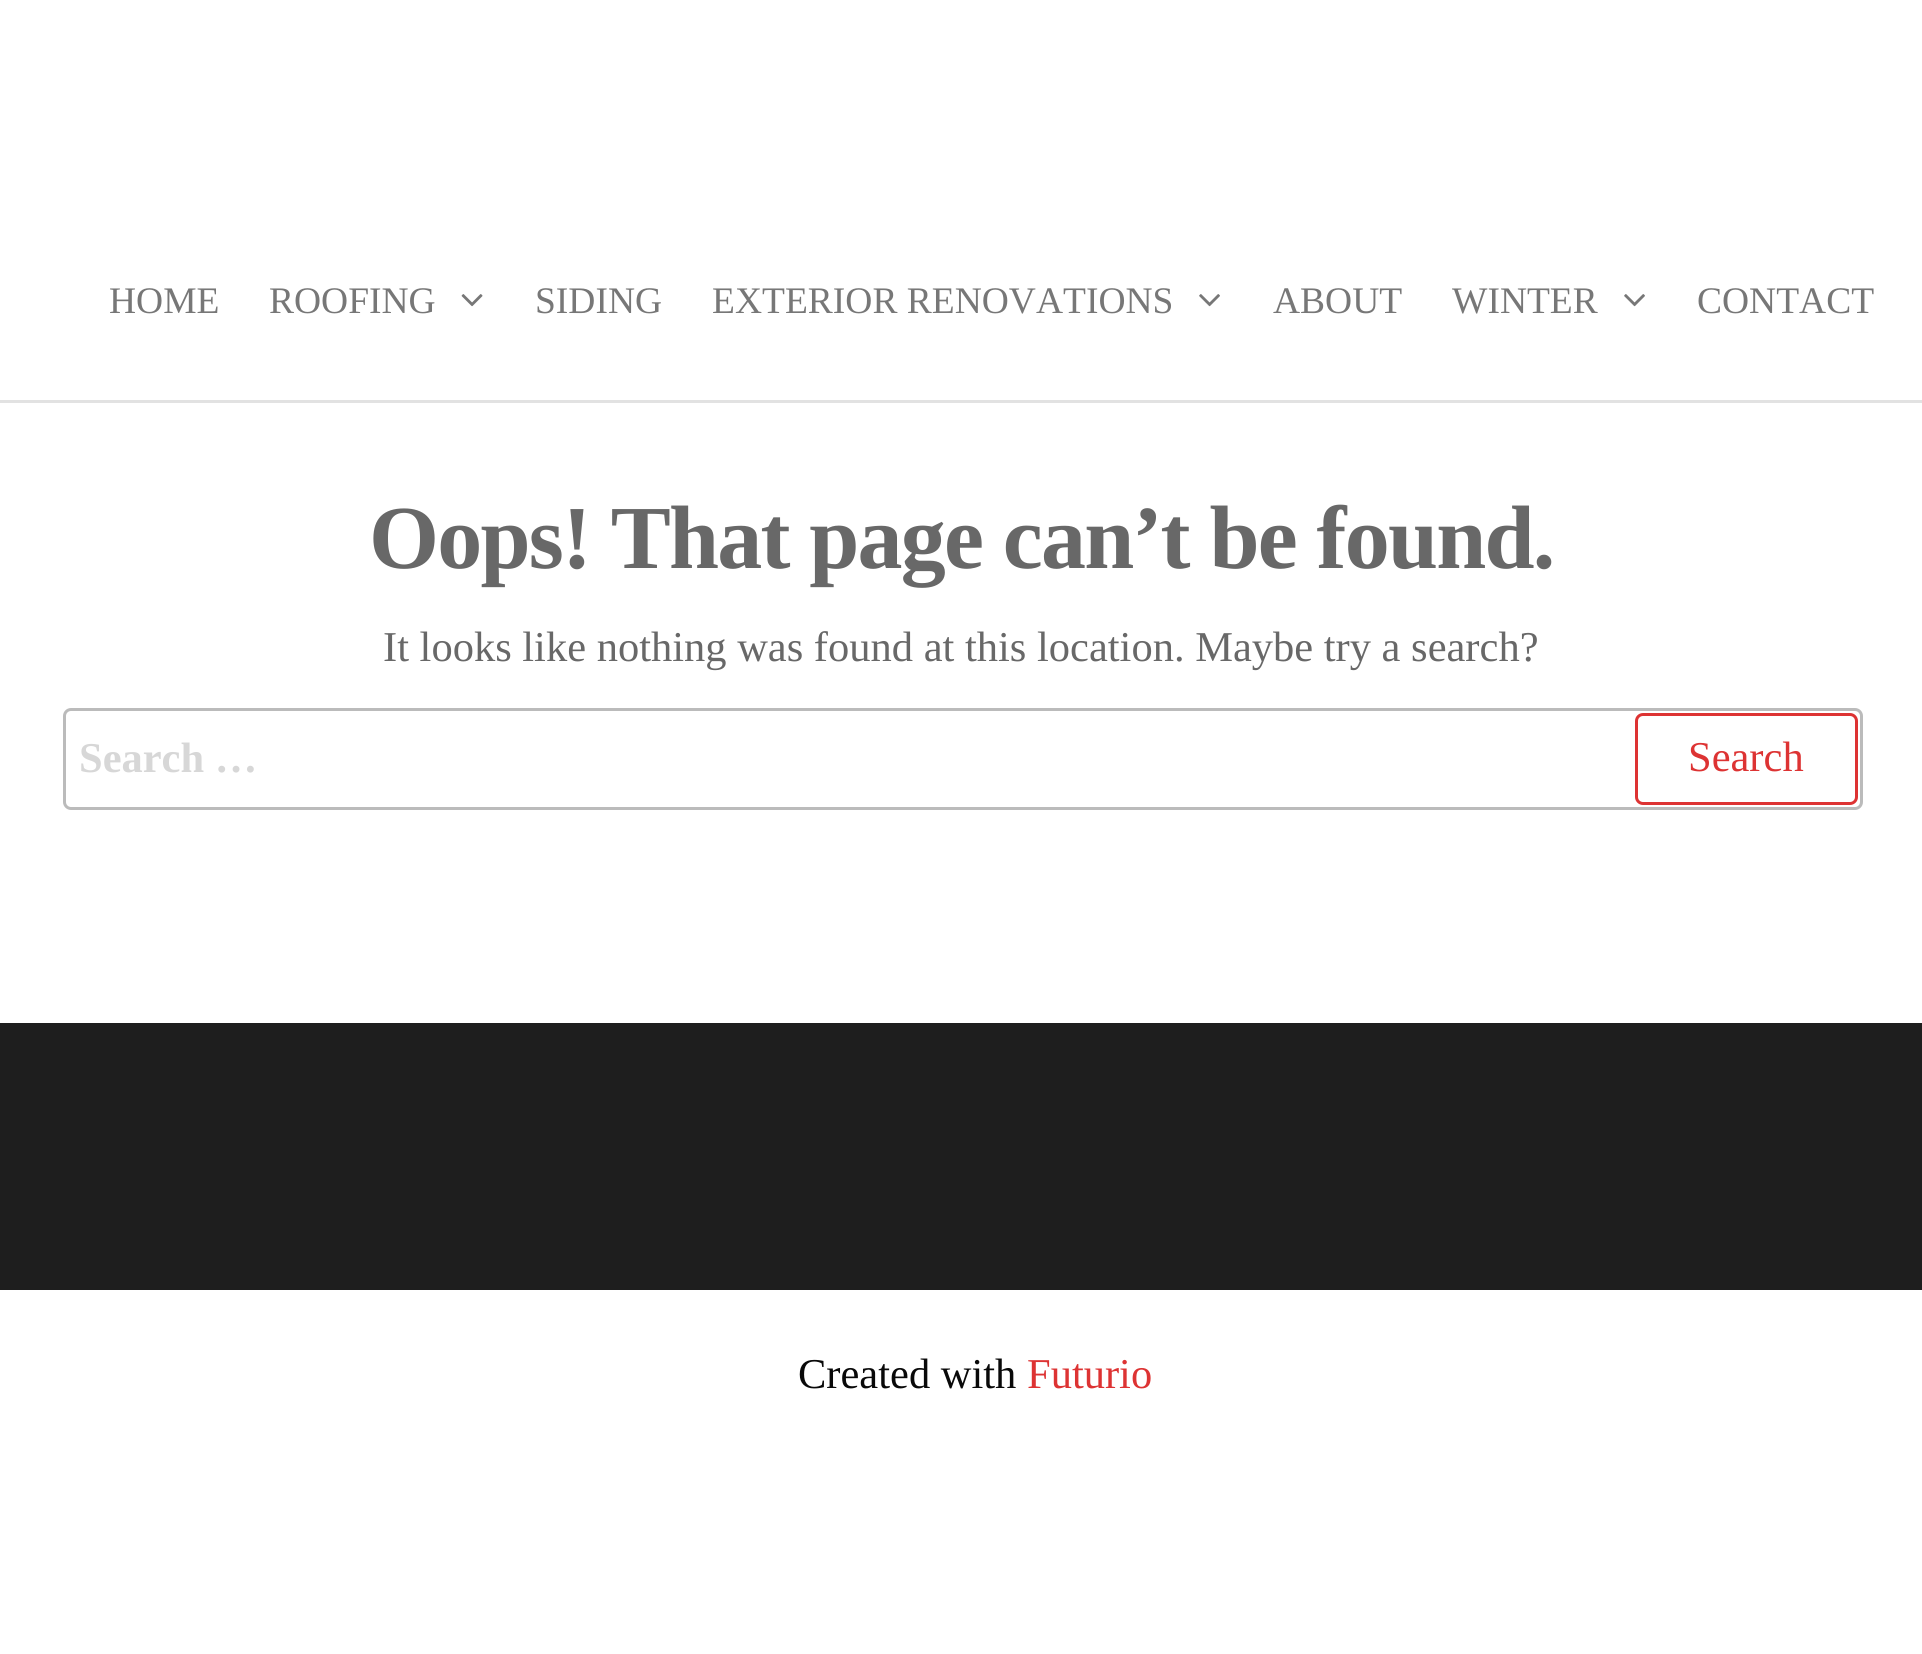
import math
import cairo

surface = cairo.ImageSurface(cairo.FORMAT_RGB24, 1922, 1654)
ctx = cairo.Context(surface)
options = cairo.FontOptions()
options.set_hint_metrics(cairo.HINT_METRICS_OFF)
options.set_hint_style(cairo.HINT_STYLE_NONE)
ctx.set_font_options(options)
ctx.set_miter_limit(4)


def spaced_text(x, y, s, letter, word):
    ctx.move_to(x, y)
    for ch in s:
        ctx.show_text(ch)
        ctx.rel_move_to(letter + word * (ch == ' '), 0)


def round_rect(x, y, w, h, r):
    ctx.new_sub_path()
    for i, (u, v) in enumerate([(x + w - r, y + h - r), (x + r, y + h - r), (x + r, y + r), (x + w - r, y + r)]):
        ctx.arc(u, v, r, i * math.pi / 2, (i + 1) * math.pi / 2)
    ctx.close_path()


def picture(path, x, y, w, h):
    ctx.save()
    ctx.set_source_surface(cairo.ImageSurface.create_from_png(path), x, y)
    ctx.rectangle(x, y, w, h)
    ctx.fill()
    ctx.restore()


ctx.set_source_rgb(1, 1, 1)
ctx.paint()
ctx.set_source_rgb(0.886, 0.886, 0.886)
ctx.rectangle(0, 400, 1922, 3)
ctx.fill()
ctx.select_font_face("Liberation Serif")
ctx.set_font_size(37.5)
ctx.set_source_rgb(0.467, 0.467, 0.467)
ctx.move_to(109, 313)
ctx.show_text("HOME")
ctx.move_to(269, 313)
ctx.show_text("ROOFING")
picture("img1.png", 461, 294, 22, 13)
ctx.move_to(535, 313)
ctx.show_text("SIDING")
ctx.move_to(712, 313)
ctx.show_text("EXTERIOR RENOVATIONS")
picture("img2.png", 1199, 294, 21, 13)
ctx.move_to(1273, 313)
ctx.show_text("ABOUT")
ctx.move_to(1452, 313)
ctx.show_text("WINTER")
picture("img2.png", 1624, 294, 21, 13)
ctx.move_to(1697, 313)
ctx.show_text("CONTACT")
ctx.select_font_face("Liberation Serif", cairo.FONT_SLANT_NORMAL, cairo.FONT_WEIGHT_BOLD)
ctx.set_font_size(90)
ctx.set_source_rgb(0.408, 0.408, 0.408)
spaced_text(369, 568, "Oops! That page can’t be found.", -1.8, 0)
ctx.select_font_face("Liberation Serif")
ctx.set_font_size(42.5)
ctx.move_to(383, 661)
ctx.show_text("It looks like nothing was found at this location. Maybe try a search?")
round_rect(64.5, 709.5, 1797, 99, 6.5)
ctx.set_source_rgb(0.733, 0.733, 0.733)
ctx.set_line_width(3)
ctx.stroke()
ctx.select_font_face("Liberation Serif", cairo.FONT_SLANT_NORMAL, cairo.FONT_WEIGHT_BOLD)
ctx.set_source_rgb(0.843, 0.843, 0.843)
ctx.move_to(79, 772)
ctx.show_text("Search …")
round_rect(1636.5, 714.5, 220, 89, 6.5)
ctx.set_source_rgb(0.867, 0.2, 0.2)
ctx.stroke()
ctx.select_font_face("Liberation Serif")
ctx.move_to(1688, 771)
ctx.show_text("Search")
ctx.set_source_rgb(0.118, 0.118, 0.118)
ctx.rectangle(0, 1023, 1922, 267)
ctx.fill()
ctx.set_source_rgb(0.039, 0.039, 0.039)
ctx.move_to(798, 1388)
ctx.show_text("Created with")
ctx.set_source_rgb(0.867, 0.2, 0.2)
ctx.move_to(1027, 1388)
ctx.show_text("Futurio")
surface.write_to_png("page.png")
